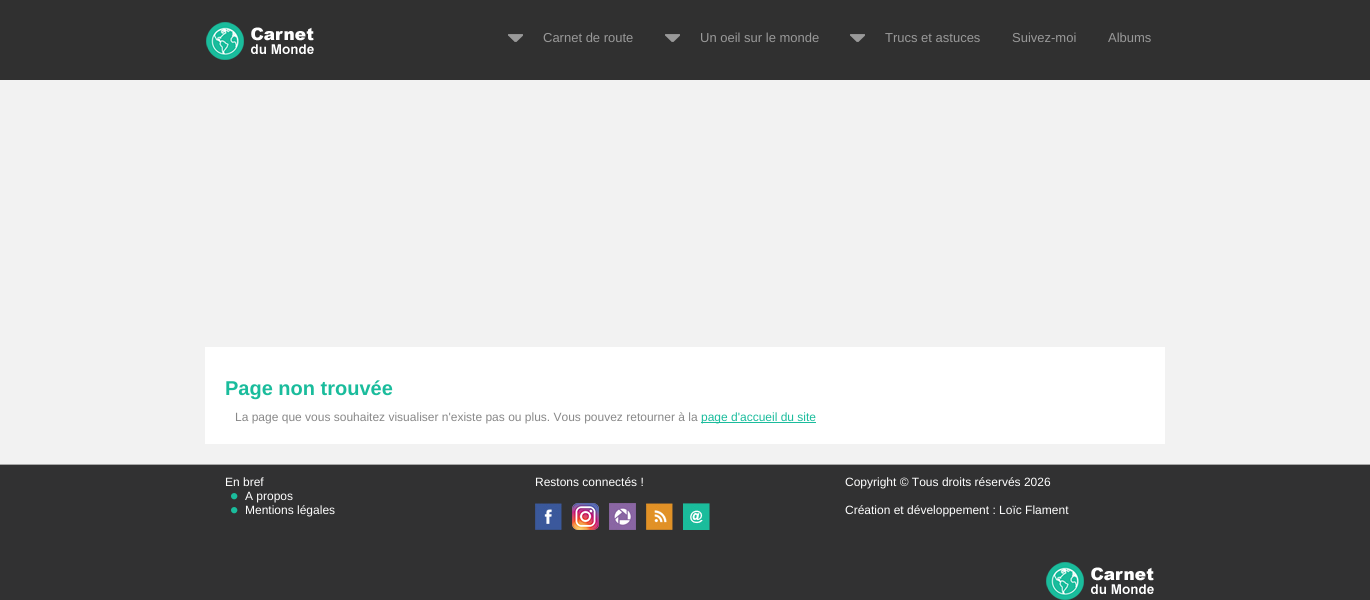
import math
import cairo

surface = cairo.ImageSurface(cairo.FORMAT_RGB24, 1370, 600)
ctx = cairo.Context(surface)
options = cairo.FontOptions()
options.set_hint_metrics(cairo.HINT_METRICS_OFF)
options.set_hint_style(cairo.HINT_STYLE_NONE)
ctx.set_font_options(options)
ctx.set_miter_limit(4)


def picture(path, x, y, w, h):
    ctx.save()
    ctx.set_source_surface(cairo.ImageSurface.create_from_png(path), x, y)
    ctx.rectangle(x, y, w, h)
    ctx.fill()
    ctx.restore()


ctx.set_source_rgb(0.949, 0.949, 0.949)
ctx.paint()
ctx.set_source_rgb(0.188, 0.188, 0.188)
ctx.rectangle(0, 0, 1370, 80)
ctx.fill()
picture("img1.png", 206, 22, 108, 38)
picture("img2.png", 508, 34, 15, 8)
ctx.select_font_face("Liberation Sans")
ctx.set_font_size(13)
ctx.set_source_rgb(0.6, 0.6, 0.6)
ctx.move_to(543, 42)
ctx.show_text("Carnet de route")
picture("img2.png", 665, 34, 15, 8)
ctx.move_to(700, 42)
ctx.show_text("Un oeil sur le monde")
picture("img2.png", 850, 34, 15, 8)
ctx.move_to(885, 42)
ctx.show_text("Trucs et astuces")
ctx.move_to(1012, 42)
ctx.show_text("Suivez-moi")
ctx.move_to(1108, 42)
ctx.show_text("Albums")
ctx.set_source_rgb(1, 1, 1)
ctx.rectangle(205, 347, 960, 97)
ctx.fill()
ctx.select_font_face("Liberation Sans", cairo.FONT_SLANT_NORMAL, cairo.FONT_WEIGHT_BOLD)
ctx.set_font_size(20)
ctx.set_source_rgb(0.102, 0.737, 0.612)
ctx.move_to(225, 395)
ctx.show_text("Page non trouvée")
ctx.select_font_face("Liberation Sans")
ctx.set_font_size(12)
ctx.set_source_rgb(0.533, 0.533, 0.533)
ctx.move_to(235, 421)
ctx.show_text("La page que vous souhaitez visualiser n'existe pas ou plus. Vous pouvez retourner à la")
ctx.set_source_rgb(0.102, 0.737, 0.612)
ctx.rectangle(701, 422, 115, 1)
ctx.fill()
ctx.move_to(701, 421)
ctx.show_text("page d'accueil du site")
ctx.set_source_rgb(0.192, 0.192, 0.196)
ctx.rectangle(0, 465, 1370, 135)
ctx.fill()
ctx.set_source_rgb(0.659, 0.659, 0.659)
ctx.rectangle(0, 464, 1370, 1)
ctx.fill()
picture("img3.png", 1046, 562, 108, 38)
ctx.set_source_rgb(1, 1, 1)
ctx.move_to(225, 486)
ctx.show_text("En bref")
picture("img4.png", 231, 493, 7, 7)
ctx.move_to(245, 500)
ctx.show_text("A propos")
picture("img4.png", 231, 507, 7, 7)
ctx.move_to(245, 514)
ctx.show_text("Mentions légales")
ctx.move_to(535, 486)
ctx.show_text("Restons connectés !")
picture("img5.png", 535, 503, 27, 27)
picture("img6.png", 572, 503, 27, 27)
picture("img7.png", 609, 503, 27, 27)
picture("img8.png", 646, 503, 27, 27)
picture("img9.png", 683, 503, 27, 27)
ctx.move_to(845, 486)
ctx.show_text("Copyright © Tous droits réservés 2026")
ctx.move_to(845, 514)
ctx.show_text("Création et développement : Loïc Flament")
surface.write_to_png("page.png")
